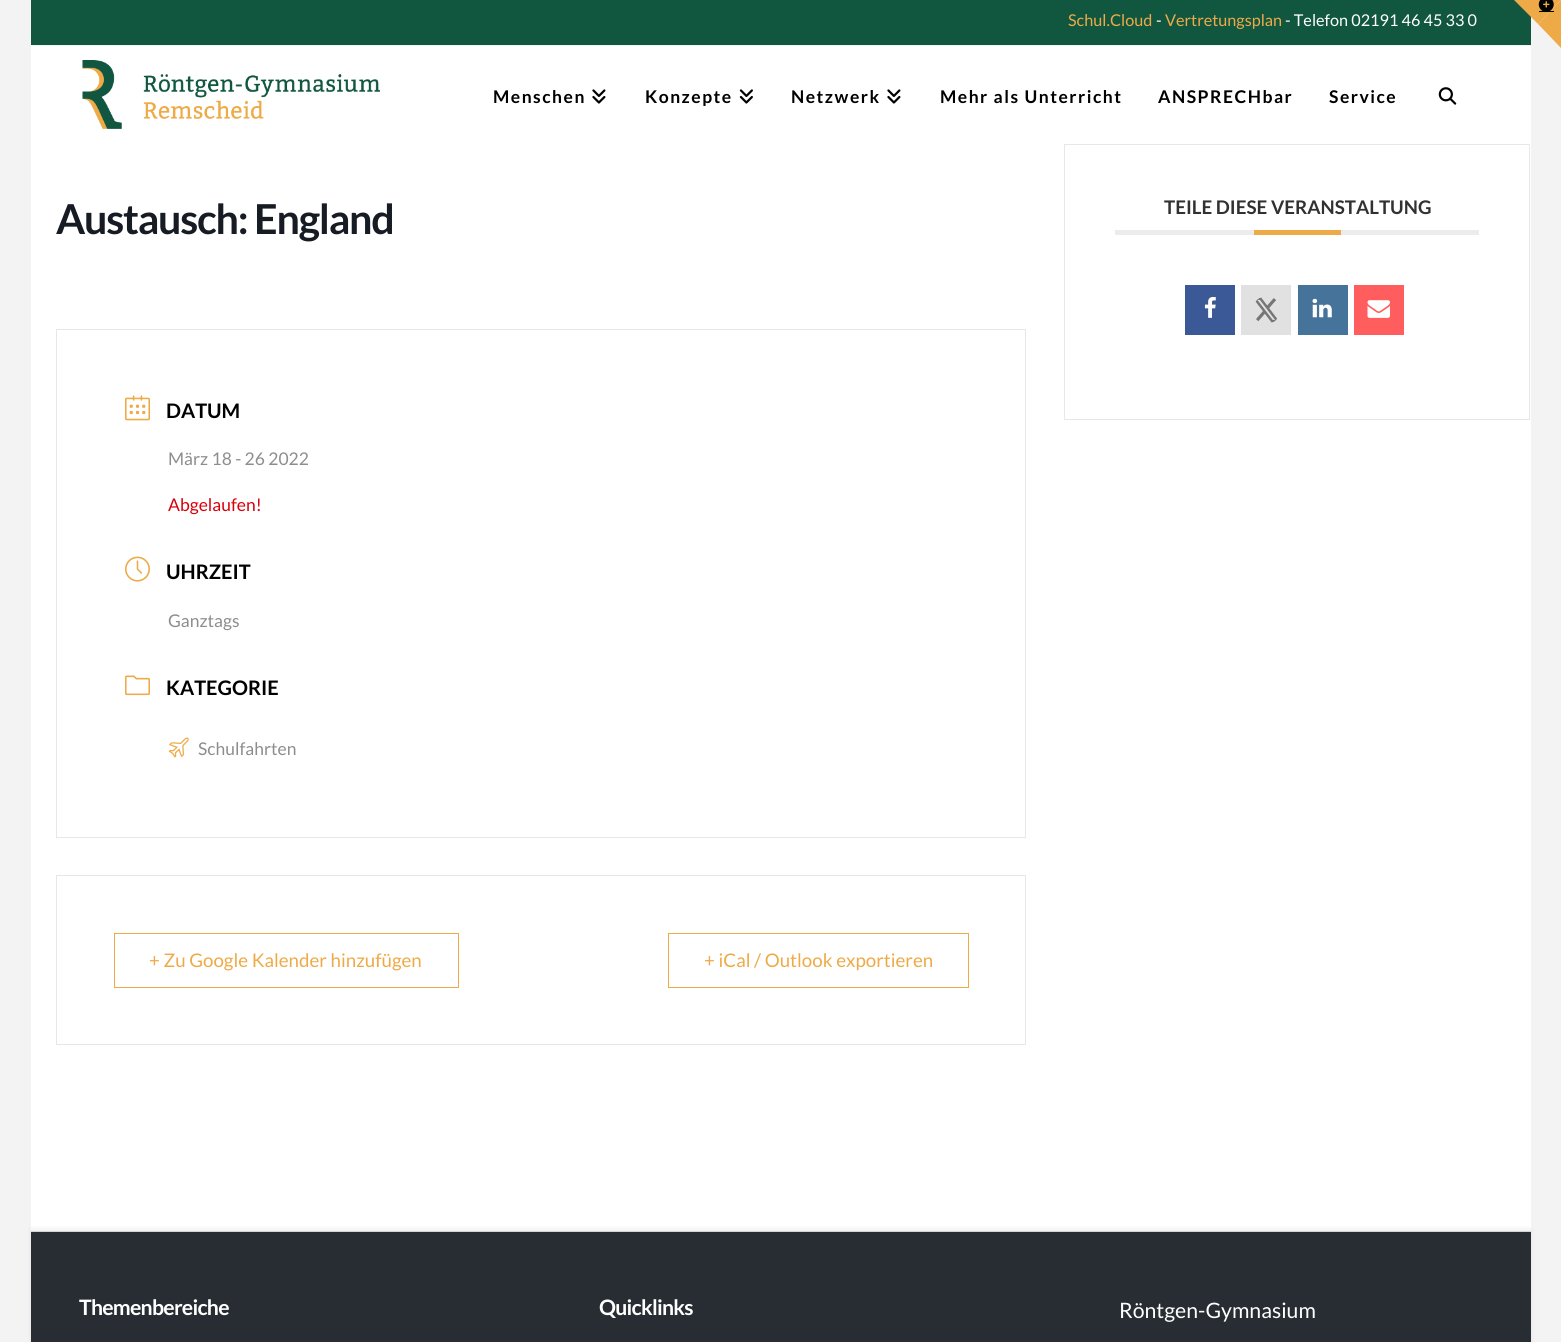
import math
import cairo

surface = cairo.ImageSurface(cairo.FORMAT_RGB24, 1561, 1342)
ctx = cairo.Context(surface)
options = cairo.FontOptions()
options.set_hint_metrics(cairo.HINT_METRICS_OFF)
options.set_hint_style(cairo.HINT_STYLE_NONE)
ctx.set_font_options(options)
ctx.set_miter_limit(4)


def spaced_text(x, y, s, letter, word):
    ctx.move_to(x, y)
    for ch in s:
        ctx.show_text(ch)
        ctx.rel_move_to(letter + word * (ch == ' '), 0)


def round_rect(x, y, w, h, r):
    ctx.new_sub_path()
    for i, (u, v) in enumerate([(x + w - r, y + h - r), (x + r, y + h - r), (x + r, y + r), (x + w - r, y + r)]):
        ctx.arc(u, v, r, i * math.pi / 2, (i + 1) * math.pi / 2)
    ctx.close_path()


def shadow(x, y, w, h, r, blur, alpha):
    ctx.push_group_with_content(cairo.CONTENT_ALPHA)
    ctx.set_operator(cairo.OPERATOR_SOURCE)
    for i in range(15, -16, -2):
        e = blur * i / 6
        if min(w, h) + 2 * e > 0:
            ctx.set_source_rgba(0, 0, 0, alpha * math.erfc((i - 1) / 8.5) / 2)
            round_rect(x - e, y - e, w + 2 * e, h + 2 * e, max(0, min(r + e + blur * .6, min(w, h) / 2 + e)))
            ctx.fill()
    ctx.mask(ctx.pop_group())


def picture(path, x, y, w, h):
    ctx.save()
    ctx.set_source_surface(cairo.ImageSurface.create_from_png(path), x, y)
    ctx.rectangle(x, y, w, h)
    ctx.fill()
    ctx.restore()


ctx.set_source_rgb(0.953, 0.953, 0.953)
ctx.paint()
ctx.set_source_rgb(1, 1, 1)
ctx.rectangle(31, 46, 1500, 1185)
ctx.fill()
ctx.set_source_rgb(0.067, 0.341, 0.251)
ctx.rectangle(31, 0, 1500, 45)
ctx.fill()
ctx.select_font_face("Lato")
ctx.set_font_size(16.25)
ctx.set_source_rgb(0.933, 0.667, 0.278)
ctx.move_to(1068, 26)
ctx.show_text("Schul.Cloud")
ctx.set_source_rgb(1, 1, 1)
ctx.move_to(1156, 26)
ctx.show_text("-")
ctx.set_source_rgb(0.933, 0.667, 0.278)
ctx.move_to(1165, 26)
ctx.show_text("Vertretungsplan")
ctx.set_source_rgb(1, 1, 1)
ctx.move_to(1285, 26)
ctx.show_text("- Telefon 02191 46 45 33 0")
picture("img1.png", 82, 60, 298, 69)
ctx.select_font_face("Lato", cairo.FONT_SLANT_NORMAL, cairo.FONT_WEIGHT_BOLD)
ctx.set_font_size(17.5)
ctx.set_source_rgb(0, 0, 0)
spaced_text(493, 103, "Menschen", 1.5, 0)
picture("img2.png", 592, 89, 14, 15)
spaced_text(645, 103, "Konzepte", 1.5, 0)
picture("img3.png", 739, 89, 14, 15)
spaced_text(791, 103, "Netzwerk", 1.5, 0)
picture("img2.png", 887, 89, 14, 15)
spaced_text(940, 103, "Mehr als Unterricht", 1.5, 0)
spaced_text(1158, 103, "ANSPRECHbar", 1.5, 0)
spaced_text(1329, 103, "Service", 1.5, 0)
picture("img4.png", 1438, 87, 19, 18)
ctx.set_font_size(41.25)
ctx.set_source_rgb(0.09, 0.11, 0.141)
spaced_text(56, 234, "Austausch: England", -1.25, 0)
ctx.rectangle(56.5, 329.5, 969, 508)
ctx.set_source_rgb(0.902, 0.906, 0.91)
ctx.set_line_width(1)
ctx.stroke()
picture("img5.png", 125, 395, 25, 26)
ctx.set_font_size(20)
ctx.set_source_rgb(0, 0, 0)
ctx.move_to(166, 418)
ctx.show_text("DATUM")
ctx.select_font_face("Lato")
ctx.set_font_size(17.5)
ctx.set_source_rgb(0.553, 0.553, 0.553)
ctx.move_to(168, 465)
ctx.show_text("März 18 - 26 2022")
ctx.set_source_rgb(0.847, 0, 0.047)
ctx.move_to(168, 511)
ctx.show_text("Abgelaufen!")
picture("img6.png", 125, 556, 25, 26)
ctx.select_font_face("Lato", cairo.FONT_SLANT_NORMAL, cairo.FONT_WEIGHT_BOLD)
ctx.set_font_size(20)
ctx.set_source_rgb(0, 0, 0)
ctx.move_to(166, 579)
ctx.show_text("UHRZEIT")
ctx.select_font_face("Lato")
ctx.set_font_size(17.5)
ctx.set_source_rgb(0.553, 0.553, 0.553)
ctx.move_to(168, 627)
ctx.show_text("Ganztags")
picture("img7.png", 125, 675, 25, 21)
ctx.select_font_face("Lato", cairo.FONT_SLANT_NORMAL, cairo.FONT_WEIGHT_BOLD)
ctx.set_font_size(20)
ctx.set_source_rgb(0, 0, 0)
ctx.move_to(166, 695)
ctx.show_text("KATEGORIE")
picture("img8.png", 168, 737, 21, 21)
ctx.select_font_face("Lato")
ctx.set_font_size(17.5)
ctx.set_source_rgb(0.553, 0.553, 0.553)
ctx.move_to(198, 755)
ctx.show_text("Schulfahrten")
ctx.rectangle(56.5, 875.5, 969, 169)
ctx.set_source_rgb(0.902, 0.906, 0.91)
ctx.stroke()
ctx.rectangle(114.5, 933.5, 344, 54)
ctx.set_source_rgb(0.933, 0.667, 0.278)
ctx.stroke()
ctx.set_font_size(18.75)
ctx.move_to(149, 967)
ctx.show_text("+ Zu Google Kalender hinzufügen")
ctx.rectangle(668.5, 933.5, 300, 54)
ctx.stroke()
ctx.move_to(704, 967)
ctx.show_text("+ iCal / Outlook exportieren")
ctx.rectangle(1064.5, 144.5, 465, 275)
ctx.set_source_rgb(0.902, 0.906, 0.91)
ctx.stroke()
ctx.set_source_rgb(0.922, 0.922, 0.922)
ctx.rectangle(1115, 230, 364, 5)
ctx.fill()
ctx.select_font_face("Lato", cairo.FONT_SLANT_NORMAL, cairo.FONT_WEIGHT_BOLD)
ctx.set_source_rgb(0.192, 0.192, 0.192)
ctx.move_to(1164, 214)
ctx.show_text("TEILE DIESE VERANSTALTUNG")
ctx.set_source_rgb(0.933, 0.667, 0.278)
ctx.rectangle(1254, 230, 87, 5)
ctx.fill()
ctx.set_source_rgb(0.231, 0.349, 0.588)
ctx.rectangle(1185, 285, 50, 50)
ctx.fill()
picture("img9.png", 1204, 297, 12, 21)
ctx.set_source_rgb(0.882, 0.882, 0.882)
ctx.rectangle(1241, 285, 50, 50)
ctx.fill()
picture("img10.png", 1255, 297, 23, 26)
ctx.set_source_rgb(0.271, 0.451, 0.6)
ctx.rectangle(1298, 285, 50, 50)
ctx.fill()
picture("img11.png", 1312, 298, 20, 20)
ctx.set_source_rgb(1, 0.365, 0.369)
ctx.rectangle(1354, 285, 50, 50)
ctx.fill()
picture("img12.png", 1367, 300, 23, 18)
ctx.set_source_rgb(0, 0, 0)
shadow(31, 1229, 1500, 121, 0, 2.5, 0.07)
ctx.set_source_rgb(0.157, 0.176, 0.2)
ctx.rectangle(31, 1232, 1500, 110)
ctx.fill()
ctx.set_source_rgb(0.831, 0.831, 0.831)
ctx.rectangle(31, 1231, 1500, 1)
ctx.fill()
ctx.set_font_size(21.25)
ctx.set_source_rgb(1, 1, 1)
spaced_text(79, 1315, "Themenbereiche", -0.75, 0)
spaced_text(599, 1315, "Quicklinks", -0.75, 0)
ctx.select_font_face("Lato")
ctx.move_to(1119, 1318)
ctx.show_text("Röntgen-Gymnasium")
ctx.set_source_rgb(0.933, 0.667, 0.278)
ctx.new_path()
ctx.move_to(1514, 0)
ctx.line_to(1561, 0)
ctx.line_to(1538, 24)
ctx.close_path()
ctx.fill()
ctx.new_path()
ctx.move_to(1561, 0)
ctx.line_to(1561, 48)
ctx.line_to(1538, 24)
ctx.close_path()
ctx.fill()
ctx.set_source_rgb(0, 0, 0)
ctx.rectangle(1539, 11, 15, 1)
ctx.fill()
picture("img13.png", 1538, 0, 16, 11)
surface.write_to_png("page.png")
